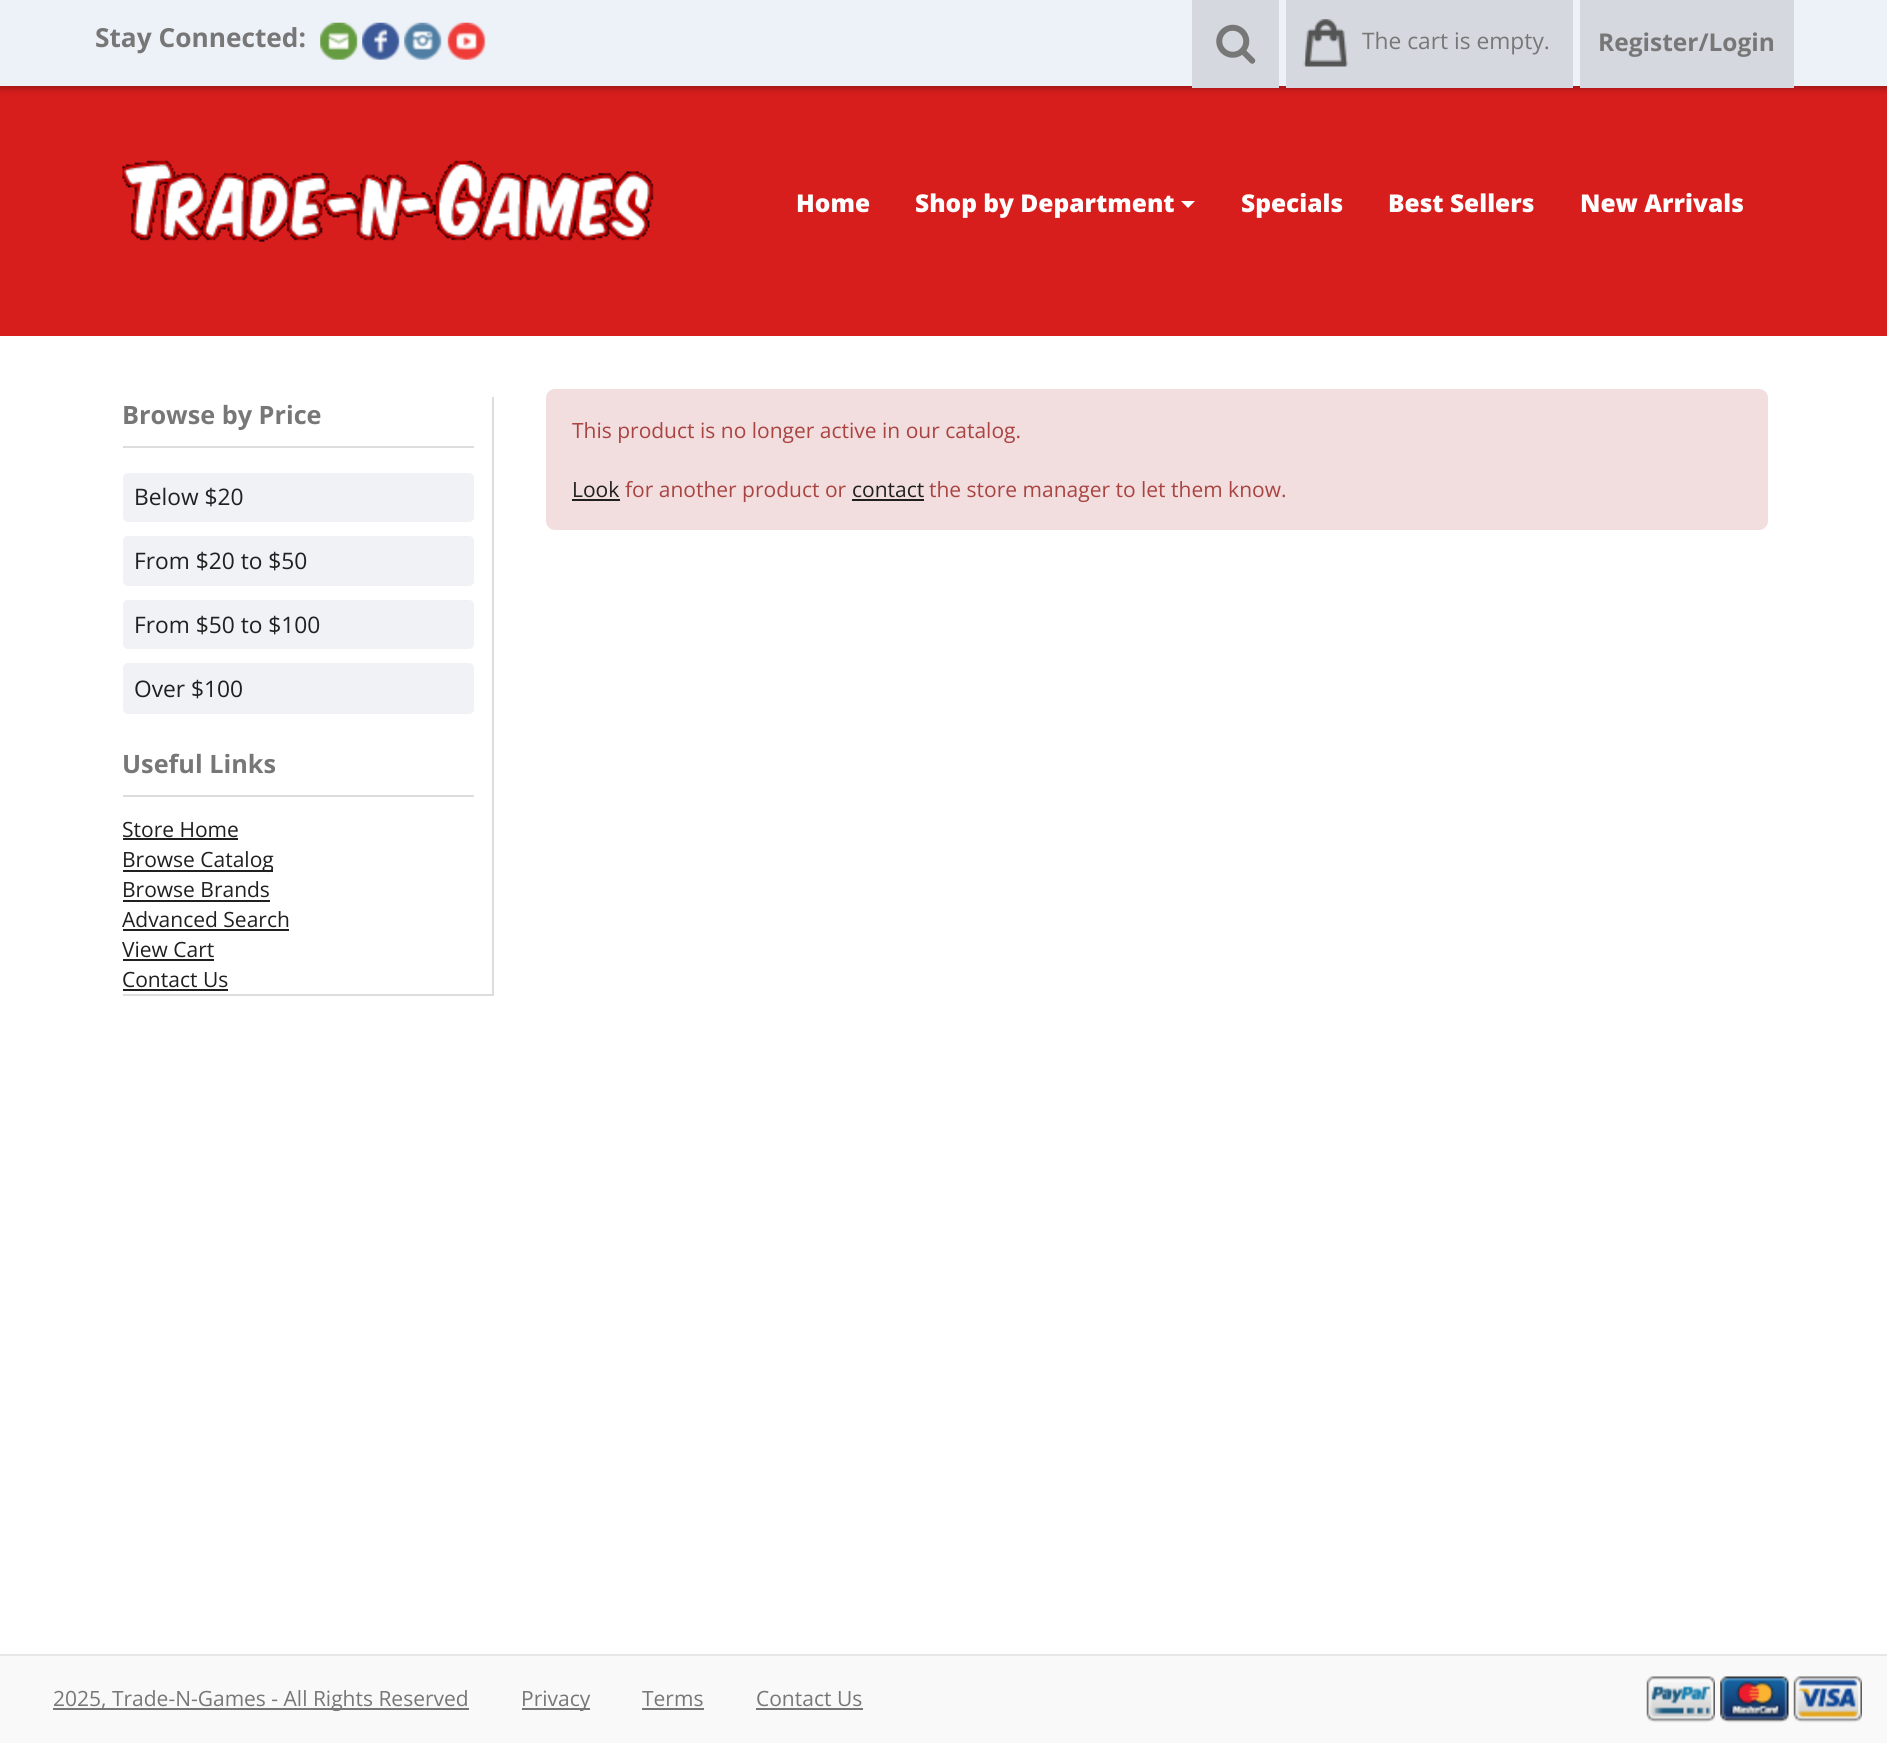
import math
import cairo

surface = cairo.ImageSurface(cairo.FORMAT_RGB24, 1887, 1743)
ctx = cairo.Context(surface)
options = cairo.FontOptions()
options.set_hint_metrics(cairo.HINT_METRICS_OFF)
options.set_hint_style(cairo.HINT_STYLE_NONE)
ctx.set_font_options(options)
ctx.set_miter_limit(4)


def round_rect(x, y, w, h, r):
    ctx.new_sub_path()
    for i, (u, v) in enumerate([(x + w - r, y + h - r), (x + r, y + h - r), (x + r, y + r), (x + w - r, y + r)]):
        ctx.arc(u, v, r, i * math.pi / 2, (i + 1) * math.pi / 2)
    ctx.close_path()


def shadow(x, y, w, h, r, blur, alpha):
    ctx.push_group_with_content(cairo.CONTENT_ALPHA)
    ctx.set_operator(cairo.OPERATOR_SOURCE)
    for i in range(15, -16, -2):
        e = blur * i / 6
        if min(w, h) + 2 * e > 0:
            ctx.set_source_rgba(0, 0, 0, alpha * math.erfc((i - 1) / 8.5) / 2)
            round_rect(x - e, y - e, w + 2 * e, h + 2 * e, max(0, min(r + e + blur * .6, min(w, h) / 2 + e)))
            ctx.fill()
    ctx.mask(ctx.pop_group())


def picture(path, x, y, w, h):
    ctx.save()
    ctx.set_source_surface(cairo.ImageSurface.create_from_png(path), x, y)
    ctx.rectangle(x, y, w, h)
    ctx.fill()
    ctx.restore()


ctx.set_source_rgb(1, 1, 1)
ctx.paint()
ctx.set_source_rgb(0.847, 0.114, 0.114)
ctx.rectangle(0, 86, 1887, 250)
ctx.fill()
ctx.set_source_rgb(0, 0, 0)
shadow(0, 2, 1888, 86, 0, 3.5, 0.33)
ctx.set_source_rgb(0.929, 0.945, 0.969)
ctx.rectangle(0, 0, 1887, 86)
ctx.fill()
ctx.select_font_face("Open Sans", cairo.FONT_SLANT_NORMAL, cairo.FONT_WEIGHT_BOLD)
ctx.set_font_size(26.25)
ctx.set_source_rgb(0.467, 0.467, 0.467)
ctx.move_to(95, 47)
ctx.show_text("Stay Connected:")
picture("img1.png", 320, 22, 38, 38)
picture("img2.png", 362, 22, 38, 38)
picture("img3.png", 404, 22, 38, 38)
picture("img4.png", 447, 22, 39, 38)
ctx.set_source_rgb(0.835, 0.847, 0.875)
ctx.rectangle(1192, 0, 87, 88)
ctx.fill()
picture("img5.png", 1216, 24, 40, 40)
ctx.rectangle(1286, 0, 287, 88)
ctx.fill()
picture("img6.png", 1303, 19, 45, 48)
ctx.select_font_face("Open Sans")
ctx.set_font_size(22.75)
ctx.set_source_rgb(0.467, 0.467, 0.467)
ctx.move_to(1362, 49)
ctx.show_text("The cart is empty.")
ctx.set_source_rgb(0.835, 0.847, 0.875)
ctx.rectangle(1580, 0, 214, 88)
ctx.fill()
ctx.select_font_face("Open Sans", cairo.FONT_SLANT_NORMAL, cairo.FONT_WEIGHT_BOLD)
ctx.set_font_size(24.5)
ctx.set_source_rgb(0.467, 0.467, 0.467)
ctx.move_to(1598, 51)
ctx.show_text("Register/Login")
picture("img7.png", 122, 160, 532, 82)
ctx.select_font_face("Open Sans ExtraBold")
ctx.set_source_rgb(1, 1, 1)
ctx.move_to(796, 212)
ctx.show_text("Home")
ctx.move_to(915, 212)
ctx.show_text("Shop by Department")
ctx.new_path()
ctx.move_to(1181, 201)
ctx.line_to(1195, 201)
ctx.line_to(1188, 208)
ctx.close_path()
ctx.fill()
ctx.move_to(1241, 212)
ctx.show_text("Specials")
ctx.move_to(1388, 212)
ctx.show_text("Best Sellers")
ctx.move_to(1580, 212)
ctx.show_text("New Arrivals")
ctx.set_source_rgb(0.867, 0.867, 0.867)
ctx.rectangle(492, 397, 2, 599)
ctx.fill()
ctx.rectangle(123, 994, 371, 2)
ctx.fill()
ctx.rectangle(123, 446, 351, 2)
ctx.fill()
ctx.select_font_face("Open Sans", cairo.FONT_SLANT_NORMAL, cairo.FONT_WEIGHT_BOLD)
ctx.set_font_size(25.25)
ctx.set_source_rgb(0.467, 0.467, 0.467)
ctx.move_to(122, 424)
ctx.show_text("Browse by Price")
ctx.set_source_rgb(0.941, 0.949, 0.961)
round_rect(123, 473, 351, 49, 5)
ctx.fill()
ctx.select_font_face("Open Sans")
ctx.set_font_size(22.75)
ctx.set_source_rgb(0.125, 0.125, 0.125)
ctx.move_to(134, 505)
ctx.show_text("Below $20")
ctx.set_source_rgb(0.941, 0.949, 0.961)
round_rect(123, 536, 351, 50, 5)
ctx.fill()
ctx.set_source_rgb(0.125, 0.125, 0.125)
ctx.move_to(134, 569)
ctx.show_text("From $20 to $50")
ctx.set_source_rgb(0.941, 0.949, 0.961)
round_rect(123, 600, 351, 49, 5)
ctx.fill()
ctx.set_source_rgb(0.125, 0.125, 0.125)
ctx.move_to(134, 633)
ctx.show_text("From $50 to $100")
ctx.set_source_rgb(0.941, 0.949, 0.961)
round_rect(123, 663, 351, 51, 5)
ctx.fill()
ctx.set_source_rgb(0.125, 0.125, 0.125)
ctx.move_to(134, 697)
ctx.show_text("Over $100")
ctx.set_source_rgb(0.867, 0.867, 0.867)
ctx.rectangle(123, 795, 351, 2)
ctx.fill()
ctx.select_font_face("Open Sans", cairo.FONT_SLANT_NORMAL, cairo.FONT_WEIGHT_BOLD)
ctx.set_font_size(25.25)
ctx.set_source_rgb(0.467, 0.467, 0.467)
ctx.move_to(122, 773)
ctx.show_text("Useful Links")
ctx.select_font_face("Open Sans")
ctx.set_font_size(21)
ctx.set_source_rgb(0.125, 0.125, 0.125)
ctx.move_to(122, 837)
ctx.show_text("Store Home")
ctx.rectangle(123, 838, 115, 2)
ctx.fill()
ctx.rectangle(123, 870, 150, 2)
ctx.fill()
ctx.move_to(122, 867)
ctx.show_text("Browse Catalog")
ctx.move_to(122, 897)
ctx.show_text("Browse Brands")
ctx.rectangle(123, 900, 147, 2)
ctx.fill()
ctx.move_to(122, 927)
ctx.show_text("Advanced Search")
ctx.rectangle(123, 929, 166, 2)
ctx.fill()
ctx.move_to(122, 957)
ctx.show_text("View Cart")
ctx.rectangle(123, 959, 91, 2)
ctx.fill()
ctx.move_to(122, 987)
ctx.show_text("Contact Us")
ctx.rectangle(123, 989, 105, 2)
ctx.fill()
ctx.set_source_rgb(0.949, 0.871, 0.871)
round_rect(546, 389, 1222, 141, 9)
ctx.fill()
ctx.set_source_rgb(0.663, 0.267, 0.259)
ctx.move_to(572, 438)
ctx.show_text("This product is no longer active in our catalog.")
ctx.set_source_rgb(0.125, 0.125, 0.125)
ctx.move_to(572, 497)
ctx.show_text("Look")
ctx.rectangle(572, 499, 48, 2)
ctx.fill()
ctx.set_source_rgb(0.663, 0.267, 0.259)
ctx.move_to(625, 497)
ctx.show_text("for another product or")
ctx.set_source_rgb(0.125, 0.125, 0.125)
ctx.move_to(852, 497)
ctx.show_text("contact")
ctx.rectangle(852, 499, 72, 2)
ctx.fill()
ctx.set_source_rgb(0.663, 0.267, 0.259)
ctx.move_to(929, 497)
ctx.show_text("the store manager to let them know.")
ctx.set_source_rgb(0.973, 0.973, 0.973)
ctx.rectangle(0, 1656, 1887, 87)
ctx.fill()
ctx.set_source_rgb(0.906, 0.906, 0.906)
ctx.rectangle(0, 1654, 1887, 2)
ctx.fill()
ctx.set_source_rgb(0.467, 0.467, 0.467)
ctx.rectangle(53, 1708, 416, 2)
ctx.fill()
ctx.move_to(53, 1706)
ctx.show_text("2025, Trade-N-Games - All Rights Reserved")
ctx.rectangle(522, 1708, 68, 2)
ctx.fill()
ctx.move_to(521, 1706)
ctx.show_text("Privacy")
ctx.move_to(642, 1706)
ctx.show_text("Terms")
ctx.rectangle(642, 1708, 62, 2)
ctx.fill()
ctx.move_to(756, 1706)
ctx.show_text("Contact Us")
ctx.rectangle(756, 1708, 107, 2)
ctx.fill()
picture("img8.png", 1646, 1676, 69, 47)
picture("img9.png", 1720, 1676, 69, 47)
picture("img10.png", 1793, 1676, 69, 47)
surface.write_to_png("page.png")
